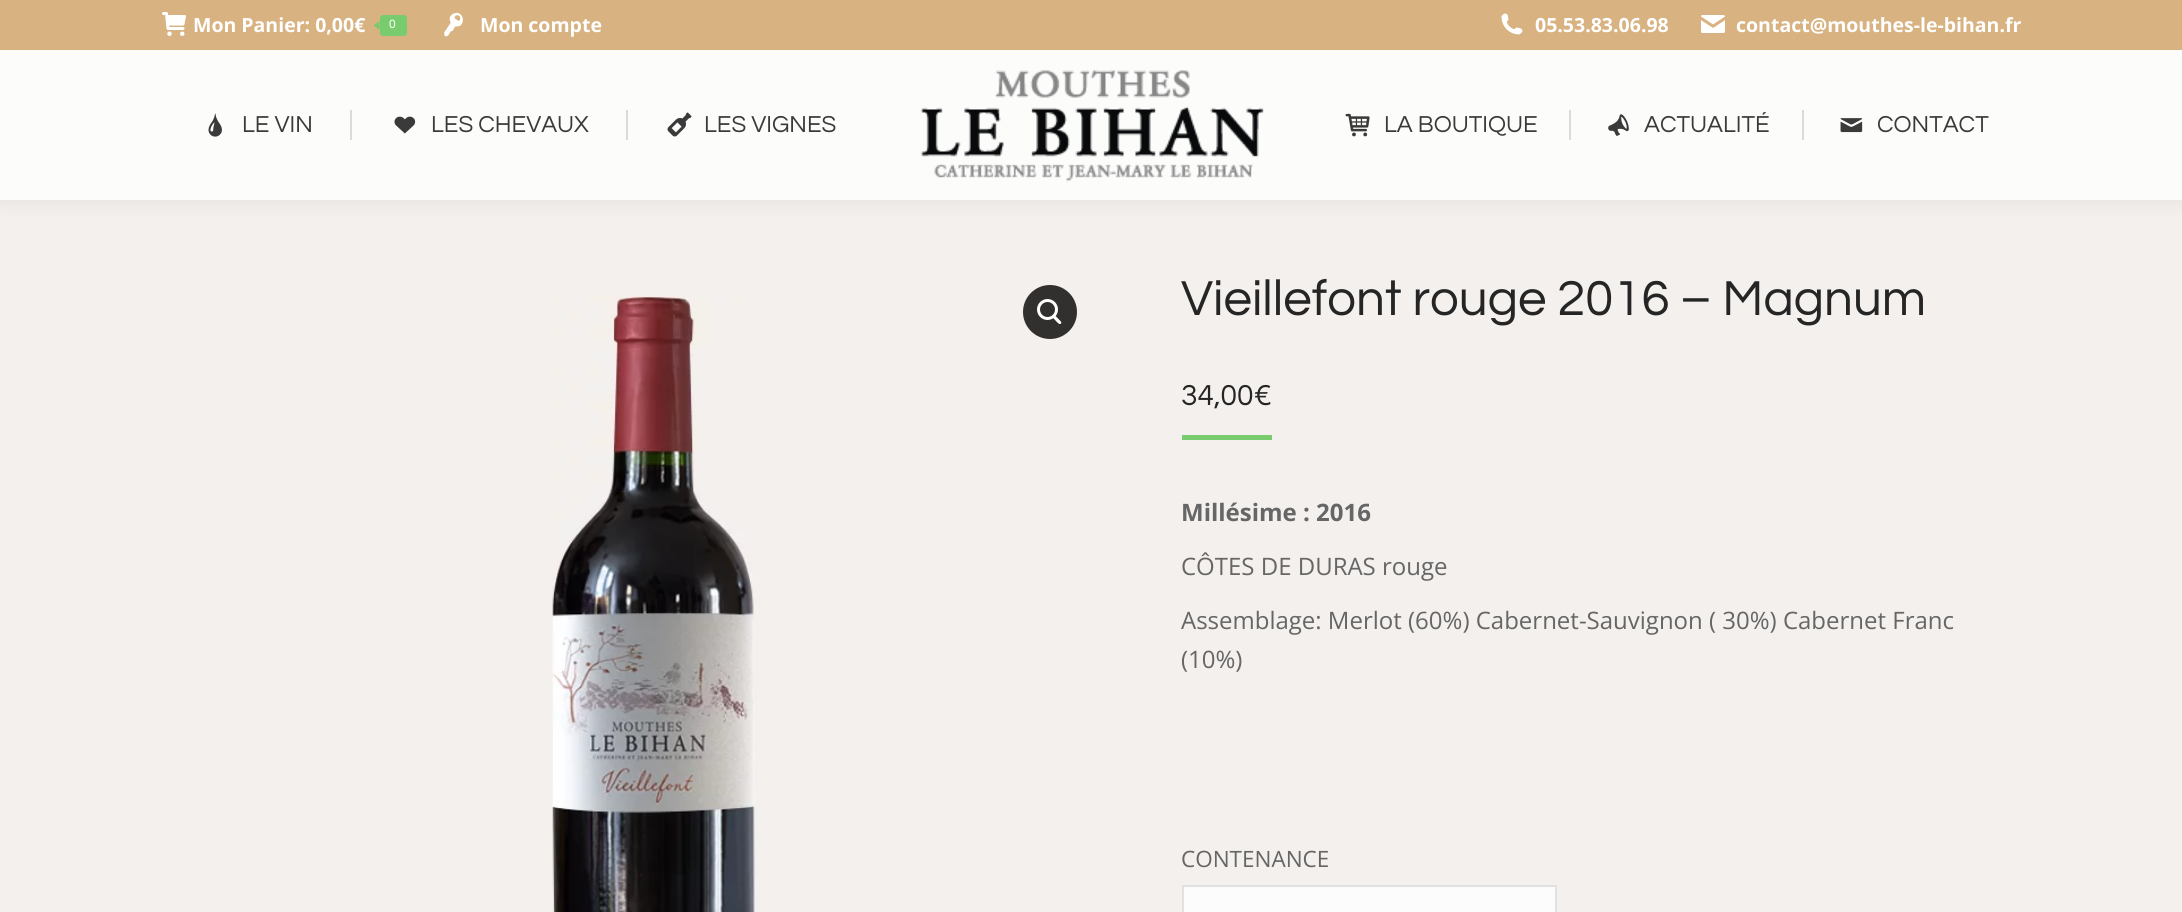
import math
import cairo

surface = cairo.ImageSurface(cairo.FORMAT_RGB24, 2182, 912)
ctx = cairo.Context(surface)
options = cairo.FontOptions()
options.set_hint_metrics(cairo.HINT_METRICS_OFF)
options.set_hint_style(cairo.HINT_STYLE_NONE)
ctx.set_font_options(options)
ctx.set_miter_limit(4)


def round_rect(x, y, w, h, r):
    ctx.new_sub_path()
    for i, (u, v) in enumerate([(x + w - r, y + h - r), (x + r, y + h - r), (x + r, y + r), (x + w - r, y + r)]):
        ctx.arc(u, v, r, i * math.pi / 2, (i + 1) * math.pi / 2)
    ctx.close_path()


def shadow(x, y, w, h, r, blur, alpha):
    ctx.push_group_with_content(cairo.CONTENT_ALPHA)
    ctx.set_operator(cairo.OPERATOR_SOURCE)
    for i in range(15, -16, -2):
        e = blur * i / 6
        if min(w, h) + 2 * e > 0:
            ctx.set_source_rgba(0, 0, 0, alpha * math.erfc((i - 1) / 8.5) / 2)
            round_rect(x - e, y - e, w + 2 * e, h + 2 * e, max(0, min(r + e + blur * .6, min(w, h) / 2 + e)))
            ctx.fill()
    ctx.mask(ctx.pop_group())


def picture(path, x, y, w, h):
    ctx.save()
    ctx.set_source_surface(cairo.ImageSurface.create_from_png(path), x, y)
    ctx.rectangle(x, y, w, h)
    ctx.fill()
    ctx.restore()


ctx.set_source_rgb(0.953, 0.941, 0.929)
ctx.paint()
ctx.set_source_rgb(0, 0, 0)
shadow(-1, -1, 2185, 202, 0, 11, 0.07)
ctx.set_source_rgb(0.988, 0.988, 0.984)
ctx.rectangle(0, 50, 2182, 150)
ctx.fill()
ctx.set_source_rgb(0.847, 0.698, 0.502)
ctx.rectangle(0, 0, 2182, 50)
ctx.fill()
picture("img1.png", 162, 12, 24, 24)
ctx.select_font_face("Open Sans", cairo.FONT_SLANT_NORMAL, cairo.FONT_WEIGHT_BOLD)
ctx.set_font_size(19.5)
ctx.set_source_rgb(1, 1, 1)
ctx.move_to(193, 32)
ctx.show_text("Mon Panier: 0,00€")
ctx.set_source_rgb(0.471, 0.8, 0.427)
round_rect(380, 15, 27, 21, 3)
ctx.fill()
ctx.new_path()
ctx.move_to(379.5, 21)
ctx.line_to(379.5, 30)
ctx.line_to(373.5, 25.5)
ctx.close_path()
ctx.fill()
ctx.select_font_face("Liberation Sans")
ctx.set_font_size(12)
ctx.set_source_rgb(1, 1, 1)
ctx.move_to(389, 28)
ctx.show_text("0")
picture("img2.png", 444, 12, 19, 25)
ctx.select_font_face("Open Sans", cairo.FONT_SLANT_NORMAL, cairo.FONT_WEIGHT_BOLD)
ctx.set_font_size(19.5)
ctx.move_to(480, 32)
ctx.show_text("Mon compte")
picture("img3.png", 1501, 13, 22, 22)
ctx.move_to(1535, 32)
ctx.show_text("05.53.83.06.98")
picture("img4.png", 1701, 15, 24, 18)
ctx.move_to(1736, 32)
ctx.show_text("contact@mouthes-le-bihan.fr")
picture("img5.png", 208, 113, 14, 24)
ctx.select_font_face("Questrial")
ctx.set_font_size(24)
ctx.set_source_rgb(0.227, 0.227, 0.227)
ctx.move_to(242, 132)
ctx.show_text("LE VIN")
ctx.set_source_rgb(0.859, 0.859, 0.855)
ctx.rectangle(350, 110, 2, 30)
ctx.fill()
picture("img6.png", 394, 116, 22, 18)
ctx.set_source_rgb(0.227, 0.227, 0.227)
ctx.move_to(431, 132)
ctx.show_text("LES CHEVAUX")
ctx.set_source_rgb(0.859, 0.859, 0.855)
ctx.rectangle(626, 110, 2, 30)
ctx.fill()
picture("img7.png", 667, 112, 25, 25)
ctx.set_source_rgb(0.227, 0.227, 0.227)
ctx.move_to(704, 132)
ctx.show_text("LES VIGNES")
picture("img8.png", 920, 70, 344, 112)
picture("img9.png", 1345, 113, 25, 24)
ctx.move_to(1384, 132)
ctx.show_text("LA BOUTIQUE")
ctx.set_source_rgb(0.859, 0.859, 0.855)
ctx.rectangle(1569, 110, 2, 30)
ctx.fill()
picture("img10.png", 1608, 114, 21, 22)
ctx.set_source_rgb(0.227, 0.227, 0.227)
ctx.move_to(1644, 132)
ctx.show_text("ACTUALITÉ")
ctx.set_source_rgb(0.859, 0.859, 0.855)
ctx.rectangle(1802, 110, 2, 30)
ctx.fill()
picture("img11.png", 1840, 118, 23, 15)
ctx.set_source_rgb(0.227, 0.227, 0.227)
ctx.move_to(1877, 132)
ctx.show_text("CONTACT")
picture("img12.png", 552, 296, 205, 616)
ctx.set_source_rgb(0.192, 0.188, 0.184)
ctx.arc(1050, 312, 27, 0, 2 * math.pi)
ctx.fill()
ctx.arc(1047.5, 309.5, 9, 0, 2 * math.pi)
ctx.set_source_rgb(1, 1, 1)
ctx.set_line_width(3)
ctx.stroke()
ctx.new_path()
ctx.move_to(1052.5, 315.5)
ctx.curve_to(1054, 313.5, 1057, 317.5, 1058, 318.5)
ctx.curve_to(1058.5, 319.5, 1062.5, 322, 1061, 323.5)
ctx.curve_to(1059.5, 325.5, 1056.5, 321.5, 1055.5, 320.5)
ctx.curve_to(1055, 319.5, 1051, 317, 1052.5, 315.5)
ctx.close_path()
ctx.fill()
ctx.set_font_size(51)
ctx.set_source_rgb(0.145, 0.145, 0.145)
ctx.move_to(1181, 315)
ctx.show_text("Vieillefont rouge 2016 – Magnum")
ctx.set_font_size(30)
ctx.move_to(1181, 405)
ctx.show_text("34,00€")
ctx.set_source_rgb(0.471, 0.8, 0.427)
ctx.rectangle(1182, 435, 90, 5)
ctx.fill()
ctx.select_font_face("Open Sans", cairo.FONT_SLANT_NORMAL, cairo.FONT_WEIGHT_BOLD)
ctx.set_font_size(24)
ctx.set_source_rgb(0.4, 0.4, 0.4)
ctx.move_to(1181, 521)
ctx.show_text("Millésime : 2016")
ctx.select_font_face("Open Sans")
ctx.move_to(1181, 575)
ctx.show_text("CÔTES DE DURAS rouge")
ctx.move_to(1181, 629)
ctx.show_text("Assemblage: Merlot (60%) Cabernet-Sauvignon ( 30%) Cabernet Franc")
ctx.move_to(1181, 668)
ctx.show_text("(10%)")
ctx.set_font_size(22.5)
ctx.move_to(1181, 867)
ctx.show_text("CONTENANCE")
ctx.set_source_rgb(0.988, 0.988, 0.988)
ctx.rectangle(1183, 886, 373, 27)
ctx.fill_preserve()
ctx.set_source_rgb(0.882, 0.882, 0.882)
ctx.set_line_width(2)
ctx.stroke()
surface.write_to_png("page.png")
